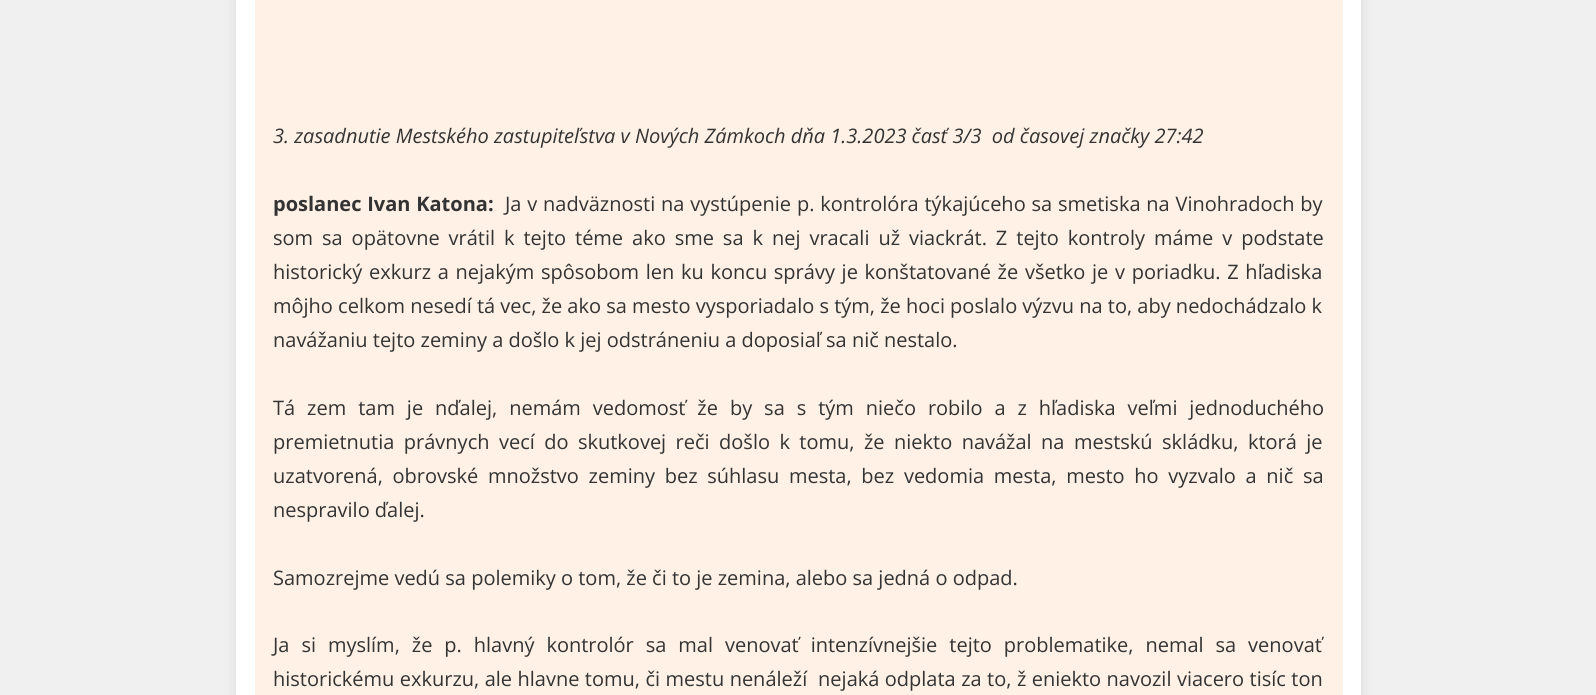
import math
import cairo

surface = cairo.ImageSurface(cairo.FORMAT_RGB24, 1596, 695)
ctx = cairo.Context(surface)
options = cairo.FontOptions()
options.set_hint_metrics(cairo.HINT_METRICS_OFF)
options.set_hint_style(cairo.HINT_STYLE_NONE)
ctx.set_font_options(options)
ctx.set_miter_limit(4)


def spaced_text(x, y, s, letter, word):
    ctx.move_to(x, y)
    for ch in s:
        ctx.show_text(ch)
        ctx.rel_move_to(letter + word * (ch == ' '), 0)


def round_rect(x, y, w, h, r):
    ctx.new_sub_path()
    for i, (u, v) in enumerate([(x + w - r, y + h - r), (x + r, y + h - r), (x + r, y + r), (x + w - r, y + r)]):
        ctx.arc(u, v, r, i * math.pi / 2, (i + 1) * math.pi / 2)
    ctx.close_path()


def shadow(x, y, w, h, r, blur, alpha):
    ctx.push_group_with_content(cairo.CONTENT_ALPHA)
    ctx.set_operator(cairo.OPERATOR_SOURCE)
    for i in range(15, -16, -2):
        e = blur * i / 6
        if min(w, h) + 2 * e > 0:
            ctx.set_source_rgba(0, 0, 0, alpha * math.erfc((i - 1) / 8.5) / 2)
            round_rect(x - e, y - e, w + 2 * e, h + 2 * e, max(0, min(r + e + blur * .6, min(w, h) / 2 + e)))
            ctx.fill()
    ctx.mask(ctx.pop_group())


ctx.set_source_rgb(0.941, 0.941, 0.941)
ctx.paint()
ctx.set_source_rgb(0, 0, 0)
shadow(236, -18, 1125, 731, 0, 6, 0.1)
ctx.set_source_rgb(1, 1, 1)
ctx.rectangle(236, 0, 1125, 695)
ctx.fill()
ctx.set_source_rgb(1, 0.945, 0.898)
ctx.rectangle(255, 0, 1088, 695)
ctx.fill()
ctx.select_font_face("Open Sans", cairo.FONT_SLANT_ITALIC)
ctx.set_font_size(20)
ctx.set_source_rgb(0.2, 0.2, 0.2)
ctx.move_to(273, 143)
ctx.show_text("3. zasadnutie Mestského zastupiteľstva v Nových Zámkoch dňa 1.3.2023 časť 3/3  od časovej značky 27:42")
ctx.select_font_face("Open Sans", cairo.FONT_SLANT_NORMAL, cairo.FONT_WEIGHT_BOLD)
spaced_text(273, 211, "poslanec Ivan Katona:", 0, 0.6)
ctx.select_font_face("Open Sans")
spaced_text(505, 211, "Ja v nadväznosti na vystúpenie p. kontrolóra týkajúceho sa smetiska na Vinohradoch by", 0, 0.6)
spaced_text(273, 245, "som sa opätovne vrátil k tejto téme ako sme sa k nej vracali už viackrát. Z tejto kontroly máme v podstate", 0, 3.75)
spaced_text(273, 279, "historický exkurz a nejakým spôsobom len ku koncu správy je konštatované že všetko je v poriadku. Z hľadiska", 0, 1.5)
ctx.move_to(273, 313)
ctx.show_text("môjho celkom nesedí tá vec, že ako sa mesto vysporiadalo s tým, že hoci poslalo výzvu na to, aby nedochádzalo k")
ctx.move_to(273, 347)
ctx.show_text("navážaniu tejto zeminy a došlo k jej odstráneniu a doposiaľ sa nič nestalo.")
spaced_text(273, 415, "Tá zem tam je nďalej, nemám vedomosť že by sa s tým niečo robilo a z hľadiska veľmi jednoduchého", 0, 6.75)
spaced_text(273, 449, "premietnutia právnych vecí do skutkovej reči došlo k tomu, že niekto navážal na mestskú skládku, ktorá je", 0, 4.25)
spaced_text(273, 483, "uzatvorená, obrovské množstvo zeminy bez súhlasu mesta, bez vedomia mesta, mesto ho vyzvalo a nič sa", 0, 4.5)
ctx.move_to(273, 517)
ctx.show_text("nespravilo ďalej.")
ctx.move_to(273, 585)
ctx.show_text("Samozrejme vedú sa polemiky o tom, že či to je zemina, alebo sa jedná o odpad.")
spaced_text(273, 652, "Ja si myslím, že p. hlavný kontrolór sa mal venovať intenzívnejšie tejto problematike, nemal sa venovať", 0, 6.75)
spaced_text(273, 686, "historickému exkurzu, ale hlavne tomu, či mestu nenáleží  nejaká odplata za to, ž eniekto navozil viacero tisíc ton", 0, 0.25)
surface.write_to_png("page.png")
